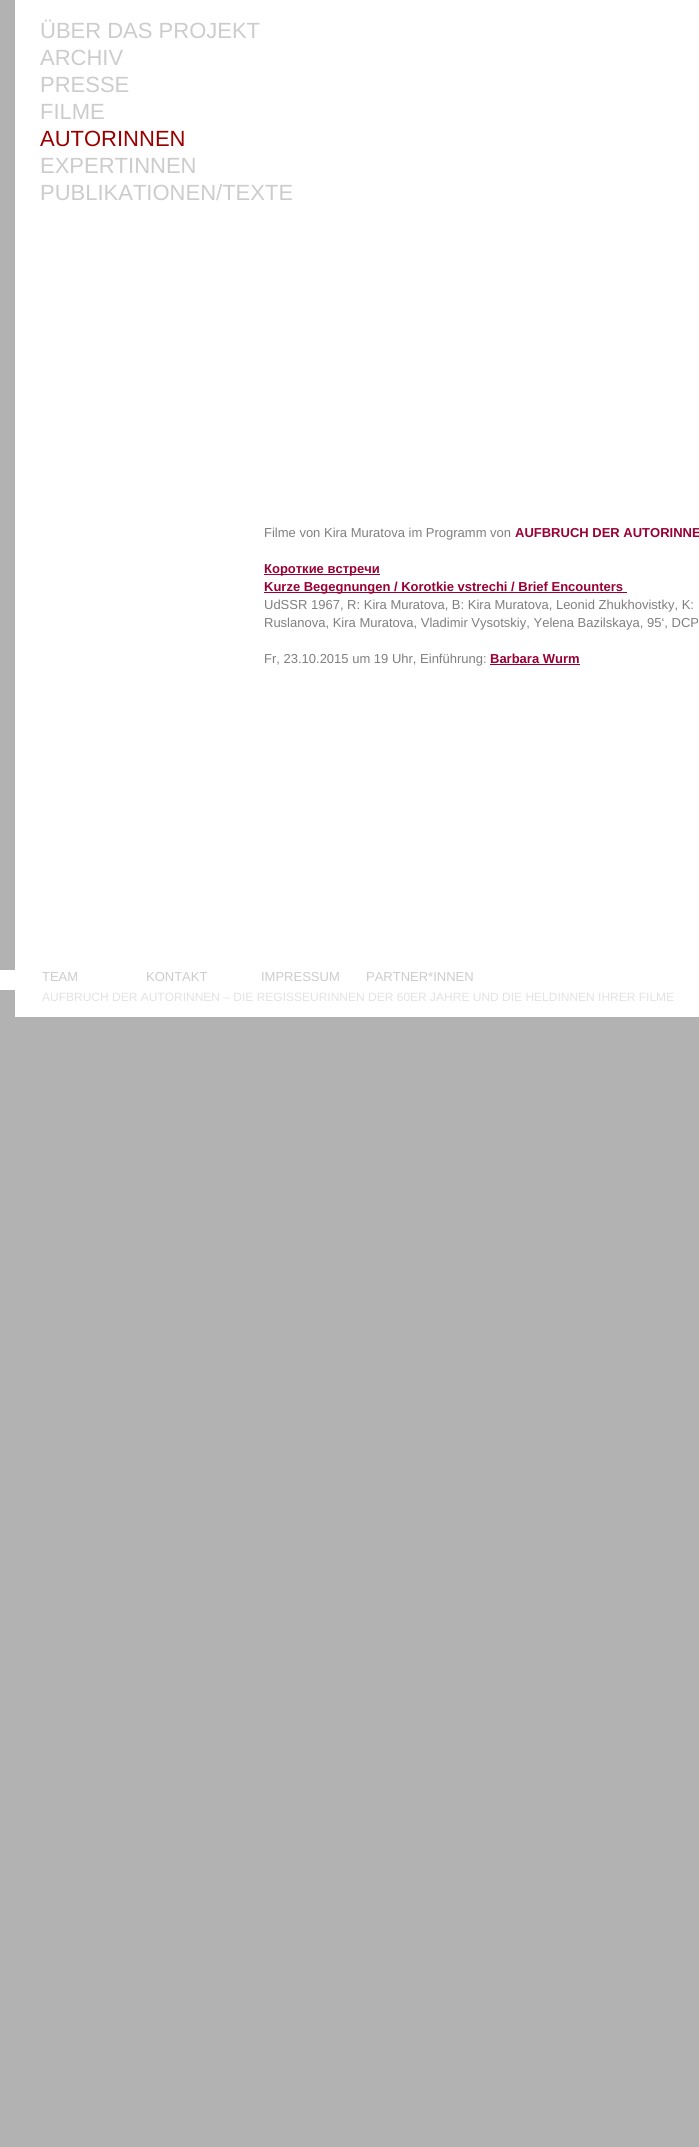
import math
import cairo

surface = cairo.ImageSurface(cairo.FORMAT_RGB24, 699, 2147)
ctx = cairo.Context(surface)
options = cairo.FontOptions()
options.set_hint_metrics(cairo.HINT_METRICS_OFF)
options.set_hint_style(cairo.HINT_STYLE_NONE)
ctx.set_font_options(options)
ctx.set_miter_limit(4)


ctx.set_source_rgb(0.698, 0.698, 0.698)
ctx.paint()
ctx.set_source_rgb(1, 1, 1)
ctx.rectangle(15, 0, 684, 1017)
ctx.fill()
ctx.select_font_face("Liberation Sans")
ctx.set_font_size(22)
ctx.set_source_rgb(0.8, 0.8, 0.8)
ctx.move_to(40, 38)
ctx.show_text("ÜBER DAS PROJEKT")
ctx.move_to(40, 65)
ctx.show_text("ARCHIV")
ctx.move_to(40, 92)
ctx.show_text("PRESSE")
ctx.move_to(40, 119)
ctx.show_text("FILME")
ctx.set_source_rgb(0.6, 0, 0)
ctx.move_to(40, 146)
ctx.show_text("AUTORINNEN")
ctx.set_source_rgb(0.8, 0.8, 0.8)
ctx.move_to(40, 173)
ctx.show_text("EXPERTINNEN")
ctx.move_to(40, 200)
ctx.show_text("PUBLIKATIONEN/TEXTE")
ctx.set_font_size(13)
ctx.set_source_rgb(0.498, 0.498, 0.498)
ctx.move_to(264, 537)
ctx.show_text("Filme von Kira Muratova im Programm von")
ctx.select_font_face("Liberation Sans", cairo.FONT_SLANT_NORMAL, cairo.FONT_WEIGHT_BOLD)
ctx.set_source_rgb(0.6, 0, 0.2)
ctx.move_to(515, 537)
ctx.show_text("AUFBRUCH DER AUTORINNE")
ctx.rectangle(264, 574, 116, 1)
ctx.fill()
ctx.move_to(264, 573)
ctx.show_text("Короткие встречи")
ctx.rectangle(264, 592, 363, 1)
ctx.fill()
ctx.move_to(264, 591)
ctx.show_text("Kurze Begegnungen / Korotkie vstrechi / Brief Encounters")
ctx.select_font_face("Liberation Sans")
ctx.set_source_rgb(0.498, 0.498, 0.498)
ctx.move_to(264, 609)
ctx.show_text("UdSSR 1967, R: Kira Muratova, B: Kira Muratova, Leonid Zhukhovistky, K:")
ctx.move_to(264, 627)
ctx.show_text("Ruslanova, Kira Muratova, Vladimir Vysotskiy, Yelena Bazilskaya, 95‘, DCP")
ctx.move_to(264, 663)
ctx.show_text("Fr, 23.10.2015 um 19 Uhr, Einführung:")
ctx.select_font_face("Liberation Sans", cairo.FONT_SLANT_NORMAL, cairo.FONT_WEIGHT_BOLD)
ctx.set_source_rgb(0.6, 0, 0.2)
ctx.move_to(490, 663)
ctx.show_text("Barbara Wurm")
ctx.rectangle(490, 664, 90, 1)
ctx.fill()
ctx.set_source_rgb(1, 1, 1)
ctx.rectangle(0, 970, 15, 20)
ctx.fill()
ctx.select_font_face("Liberation Sans")
ctx.set_source_rgb(0.8, 0.8, 0.8)
ctx.move_to(42, 981)
ctx.show_text("TEAM")
ctx.move_to(146, 981)
ctx.show_text("KONTAKT")
ctx.move_to(261, 981)
ctx.show_text("IMPRESSUM")
ctx.move_to(366, 981)
ctx.show_text("PARTNER*INNEN")
ctx.set_font_size(12)
ctx.set_source_rgb(0.886, 0.886, 0.886)
ctx.move_to(42, 1001)
ctx.show_text("AUFBRUCH DER AUTORINNEN – DIE REGISSEURINNEN DER 60ER JAHRE UND DIE HELDINNEN IHRER FILME")
surface.write_to_png("page.png")
